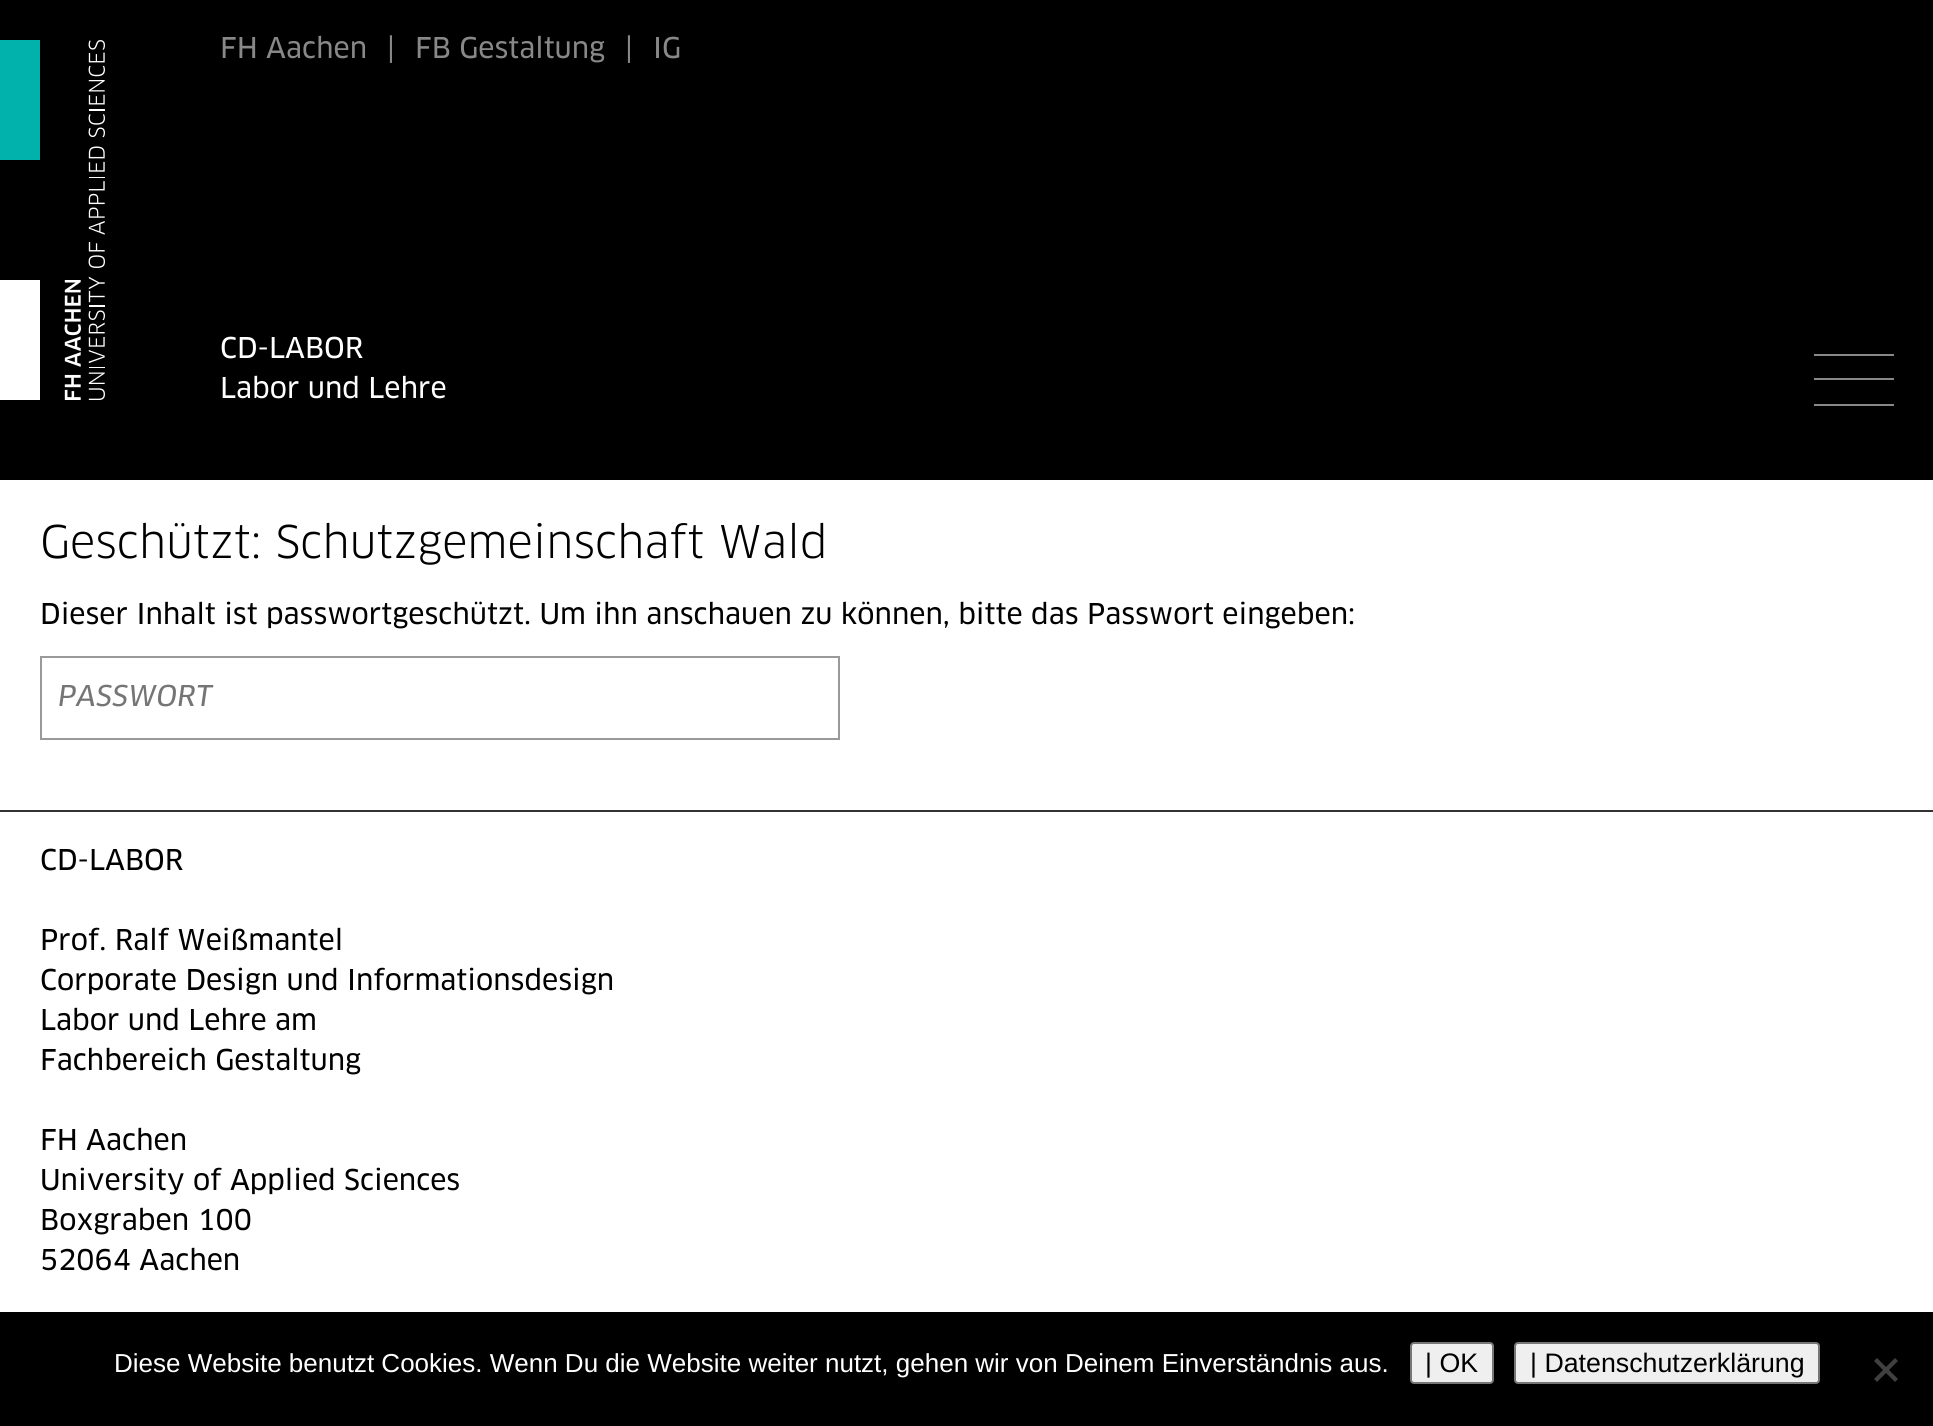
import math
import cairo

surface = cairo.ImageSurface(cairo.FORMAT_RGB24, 1933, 1426)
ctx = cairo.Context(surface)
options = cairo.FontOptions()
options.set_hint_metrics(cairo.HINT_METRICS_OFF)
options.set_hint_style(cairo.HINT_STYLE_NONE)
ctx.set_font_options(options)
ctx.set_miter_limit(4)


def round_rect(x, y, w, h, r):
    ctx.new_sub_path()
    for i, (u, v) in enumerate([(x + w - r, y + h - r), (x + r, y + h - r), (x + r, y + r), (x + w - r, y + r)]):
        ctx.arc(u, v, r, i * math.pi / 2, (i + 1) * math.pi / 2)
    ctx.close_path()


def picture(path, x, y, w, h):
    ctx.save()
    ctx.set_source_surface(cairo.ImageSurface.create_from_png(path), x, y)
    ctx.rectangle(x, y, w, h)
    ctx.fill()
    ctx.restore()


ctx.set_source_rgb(1, 1, 1)
ctx.paint()
ctx.set_source_rgb(0, 0, 0)
ctx.rectangle(0, 0, 1933, 480)
ctx.fill()
picture("img1.png", 0, 40, 105, 360)
ctx.select_font_face("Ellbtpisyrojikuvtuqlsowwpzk")
ctx.set_font_size(28)
ctx.set_source_rgb(0.533, 0.533, 0.533)
ctx.move_to(220, 58)
ctx.show_text("FH Aachen")
ctx.move_to(387, 58)
ctx.show_text("|")
ctx.move_to(415, 58)
ctx.show_text("FB Gestaltung")
ctx.move_to(625, 58)
ctx.show_text("|")
ctx.move_to(653, 58)
ctx.show_text("IG")
ctx.set_source_rgb(1, 1, 1)
ctx.move_to(220, 358)
ctx.show_text("CD-LABOR")
ctx.move_to(220, 398)
ctx.show_text("Labor und Lehre")
ctx.set_source_rgb(0.533, 0.533, 0.533)
ctx.rectangle(1814, 354, 80, 2)
ctx.fill()
ctx.rectangle(1814, 378, 80, 2)
ctx.fill()
ctx.rectangle(1814, 404, 80, 2)
ctx.fill()
ctx.select_font_face("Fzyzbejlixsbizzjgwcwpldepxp")
ctx.set_font_size(44)
ctx.set_source_rgb(0, 0, 0)
ctx.move_to(40, 558)
ctx.show_text("Geschützt: Schutzgemeinschaft Wald")
ctx.select_font_face("Ellbtpisyrojikuvtuqlsowwpzk")
ctx.set_font_size(28)
ctx.move_to(40, 624)
ctx.show_text("Dieser Inhalt ist passwortgeschützt. Um ihn anschauen zu können, bitte das Passwort eingeben:")
ctx.rectangle(41, 657, 798, 82)
ctx.set_source_rgb(0.6, 0.6, 0.6)
ctx.stroke()
ctx.select_font_face("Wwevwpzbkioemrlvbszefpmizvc", cairo.FONT_SLANT_ITALIC)
ctx.set_source_rgb(0.459, 0.459, 0.459)
ctx.move_to(58, 706)
ctx.show_text("PASSWORT")
ctx.set_source_rgb(0, 0, 0)
ctx.rectangle(0, 1312, 1933, 114)
ctx.fill()
ctx.select_font_face("Liberation Sans")
ctx.set_font_size(26)
ctx.set_source_rgb(1, 1, 1)
ctx.move_to(114, 1372)
ctx.show_text("Diese Website benutzt Cookies. Wenn Du die Website weiter nutzt, gehen wir von Deinem Einverständnis aus.")
ctx.set_source_rgb(0.937, 0.937, 0.937)
round_rect(1411, 1343, 82, 40, 3)
ctx.fill_preserve()
ctx.set_source_rgb(0.463, 0.463, 0.463)
ctx.stroke()
ctx.set_font_size(26.75)
ctx.set_source_rgb(0, 0, 0)
ctx.move_to(1425, 1372)
ctx.show_text("| OK")
ctx.set_source_rgb(0.937, 0.937, 0.937)
round_rect(1515, 1343, 304, 40, 3)
ctx.fill_preserve()
ctx.set_source_rgb(0.463, 0.463, 0.463)
ctx.stroke()
ctx.set_source_rgb(0, 0, 0)
ctx.move_to(1530, 1372)
ctx.show_text("| Datenschutzerklärung")
ctx.set_source_rgb(0.251, 0.251, 0.251)
ctx.new_path()
ctx.move_to(1895, 1358)
ctx.line_to(1898, 1361)
ctx.line_to(1877, 1382)
ctx.line_to(1874, 1379)
ctx.close_path()
ctx.fill()
ctx.new_path()
ctx.move_to(1874, 1361)
ctx.line_to(1877, 1358)
ctx.line_to(1898, 1379)
ctx.line_to(1895, 1382)
ctx.close_path()
ctx.fill()
ctx.set_source_rgb(0.2, 0.2, 0.2)
ctx.rectangle(0, 810, 1933, 2)
ctx.fill()
ctx.select_font_face("Ellbtpisyrojikuvtuqlsowwpzk")
ctx.set_font_size(28)
ctx.set_source_rgb(0, 0, 0)
ctx.move_to(40, 870)
ctx.show_text("CD-LABOR")
ctx.move_to(40, 950)
ctx.show_text("Prof. Ralf Weißmantel")
ctx.move_to(40, 990)
ctx.show_text("Corporate Design und Informationsdesign")
ctx.move_to(40, 1030)
ctx.show_text("Labor und Lehre am")
ctx.move_to(40, 1070)
ctx.show_text("Fachbereich Gestaltung")
ctx.move_to(40, 1150)
ctx.show_text("FH Aachen")
ctx.move_to(40, 1190)
ctx.show_text("University of Applied Sciences")
ctx.move_to(40, 1230)
ctx.show_text("Boxgraben 100")
ctx.move_to(40, 1270)
ctx.show_text("52064 Aachen")
surface.write_to_png("page.png")
